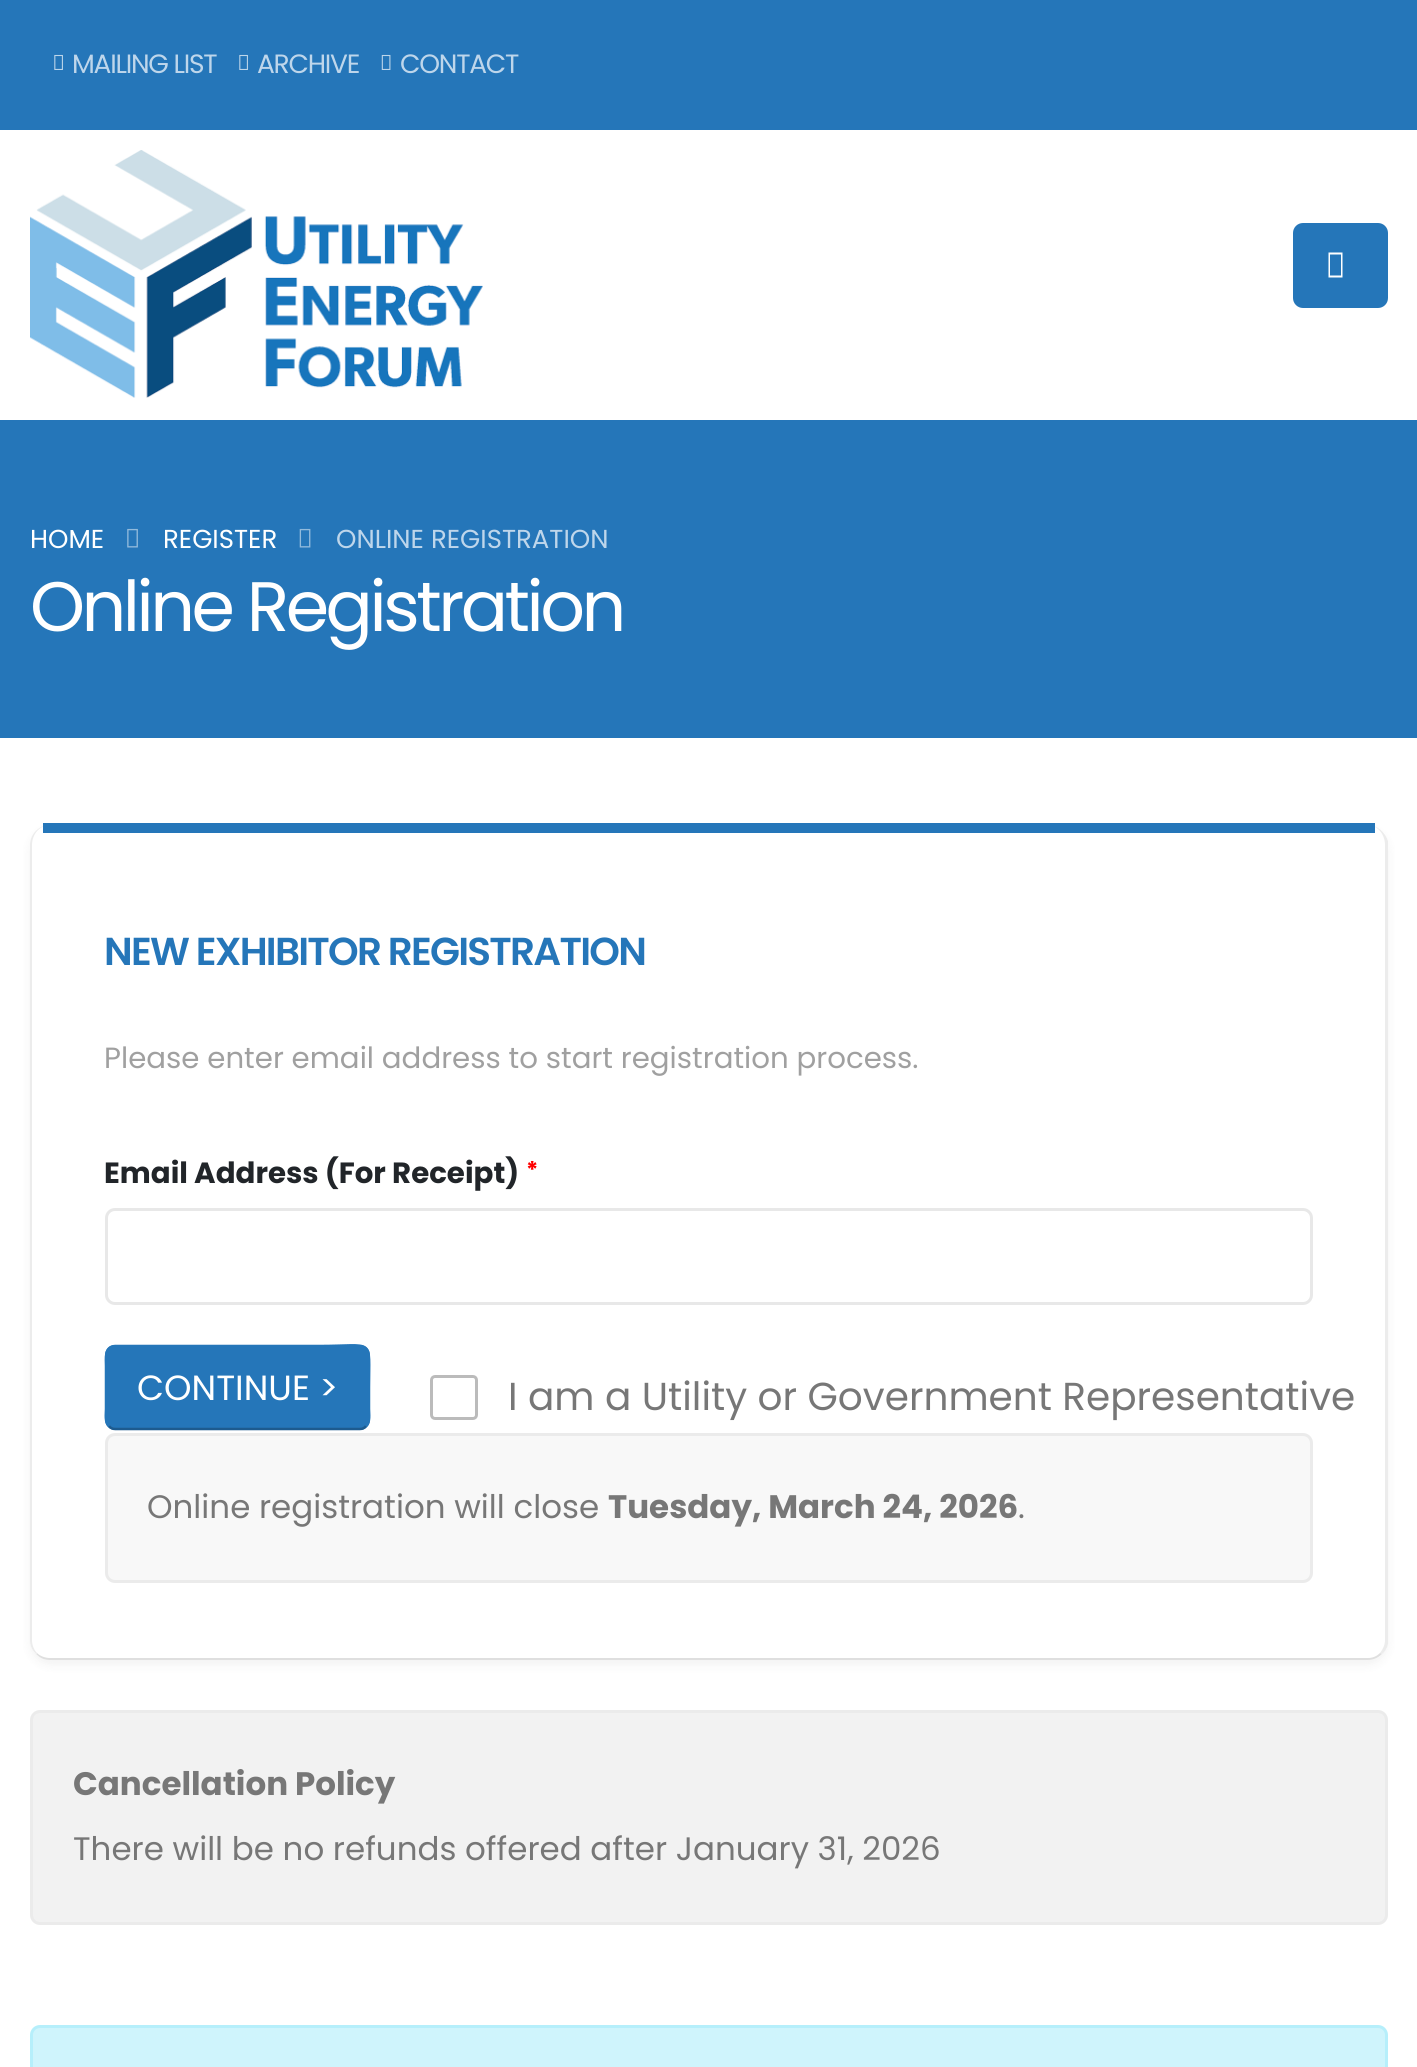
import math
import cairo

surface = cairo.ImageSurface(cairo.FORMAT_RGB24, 1417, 2067)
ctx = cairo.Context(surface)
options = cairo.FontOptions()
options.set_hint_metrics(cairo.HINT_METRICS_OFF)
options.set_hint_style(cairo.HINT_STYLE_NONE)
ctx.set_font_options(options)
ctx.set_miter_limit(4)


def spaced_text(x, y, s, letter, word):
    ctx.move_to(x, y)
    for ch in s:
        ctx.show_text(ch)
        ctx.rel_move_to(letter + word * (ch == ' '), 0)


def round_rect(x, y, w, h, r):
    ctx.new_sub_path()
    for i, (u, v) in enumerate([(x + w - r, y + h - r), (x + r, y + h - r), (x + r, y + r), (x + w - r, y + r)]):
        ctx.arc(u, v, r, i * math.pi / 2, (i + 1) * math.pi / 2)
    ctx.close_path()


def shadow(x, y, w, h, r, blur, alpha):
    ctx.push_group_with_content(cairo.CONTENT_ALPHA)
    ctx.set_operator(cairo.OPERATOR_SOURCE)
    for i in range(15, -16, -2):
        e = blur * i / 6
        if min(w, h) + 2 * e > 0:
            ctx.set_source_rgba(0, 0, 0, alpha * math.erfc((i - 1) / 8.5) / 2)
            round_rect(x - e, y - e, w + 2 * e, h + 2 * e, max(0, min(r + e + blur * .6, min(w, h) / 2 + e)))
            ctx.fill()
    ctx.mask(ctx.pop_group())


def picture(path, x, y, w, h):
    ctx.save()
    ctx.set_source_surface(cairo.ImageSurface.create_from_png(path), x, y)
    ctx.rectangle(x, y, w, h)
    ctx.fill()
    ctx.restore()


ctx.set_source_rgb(1, 1, 1)
ctx.paint()
ctx.set_source_rgb(0.145, 0.463, 0.725)
ctx.rectangle(0, 0, 1417, 130)
ctx.fill()
picture("img1.png", 54, 54, 9, 16)
ctx.select_font_face("Poppins")
ctx.set_font_size(26.5)
ctx.set_source_rgb(0.745, 0.839, 0.918)
spaced_text(72, 73, "MAILING LIST", -1.25, 0)
picture("img1.png", 239, 54, 9, 16)
spaced_text(257, 73, "ARCHIVE", -1.25, 0)
picture("img2.png", 381, 54, 10, 16)
spaced_text(400, 73, "CONTACT", -1.25, 0)
picture("img3.png", 30, 150, 453, 248)
ctx.set_source_rgb(0.145, 0.463, 0.725)
round_rect(1293, 223, 95, 85, 10)
ctx.fill()
ctx.set_source_rgb(1, 1, 1)
ctx.new_path()
ctx.move_to(1328.5, 277.5)
ctx.line_to(1328.5, 252.5)
ctx.line_to(1342.5, 252.5)
ctx.line_to(1342.5, 277.5)
ctx.close_path()
ctx.move_to(1330, 275.5)
ctx.line_to(1341, 275.5)
ctx.line_to(1341, 254.5)
ctx.line_to(1330, 254.5)
ctx.close_path()
ctx.fill()
ctx.set_source_rgb(0.145, 0.463, 0.725)
ctx.rectangle(0, 420, 1417, 318)
ctx.fill()
ctx.set_font_size(26)
ctx.set_source_rgb(1, 1, 1)
ctx.move_to(30, 548)
ctx.show_text("HOME")
picture("img4.png", 127, 528, 11, 20)
ctx.move_to(163, 548)
ctx.show_text("REGISTER")
picture("img5.png", 299, 528, 12, 20)
ctx.set_source_rgb(0.745, 0.839, 0.918)
ctx.move_to(336, 548)
ctx.show_text("ONLINE REGISTRATION")
ctx.set_font_size(70)
ctx.set_source_rgb(1, 1, 1)
spaced_text(30, 631, "Online Registration", -3.5, 0)
ctx.set_source_rgb(0, 0, 0)
shadow(30, 830, 1358, 835, 20, 5, 0.05)
ctx.set_source_rgb(1, 1, 1)
round_rect(30, 825, 1358, 835, 20)
ctx.fill()
ctx.set_source_rgb(0.925, 0.925, 0.925)
ctx.new_path()
ctx.move_to(1388, 841)
ctx.curve_to(1385, 832, 1377, 825, 1368, 825)
ctx.curve_to(1377, 825, 1385, 834, 1385, 845)
ctx.line_to(1385, 1640)
ctx.curve_to(1385, 1645, 1383, 1649, 1380, 1653)
ctx.line_to(1382, 1654)
ctx.curve_to(1385, 1652, 1387, 1648, 1388, 1644)
ctx.close_path()
ctx.fill()
ctx.set_source_rgb(0.875, 0.875, 0.875)
ctx.new_path()
ctx.move_to(37, 1653)
ctx.curve_to(40, 1656, 45, 1658, 50, 1658)
ctx.line_to(1368, 1658)
ctx.curve_to(1373, 1658, 1377, 1656, 1380, 1653)
ctx.line_to(1382, 1654)
ctx.curve_to(1378, 1658, 1373, 1660, 1368, 1660)
ctx.line_to(50, 1660)
ctx.curve_to(44, 1660, 40, 1658, 36, 1654)
ctx.close_path()
ctx.fill()
ctx.set_source_rgb(0.925, 0.925, 0.925)
ctx.new_path()
ctx.move_to(50, 825)
ctx.curve_to(39, 825, 30, 834, 30, 845)
ctx.line_to(30, 1640)
ctx.curve_to(30, 1646, 32, 1650, 36, 1654)
ctx.line_to(37, 1653)
ctx.curve_to(34, 1650, 32, 1645, 32, 1640)
ctx.line_to(32, 845)
ctx.curve_to(32, 834, 40, 825, 50, 825)
ctx.close_path()
ctx.fill()
ctx.set_source_rgb(0.145, 0.463, 0.725)
ctx.rectangle(43, 823, 1332, 10)
ctx.fill()
ctx.select_font_face("Poppins SemiBold")
ctx.set_font_size(39)
spaced_text(104, 965, "NEW EXHIBITOR REGISTRATION", -1.75, 0)
ctx.select_font_face("Poppins")
ctx.set_font_size(29.25)
ctx.set_source_rgb(0.627, 0.627, 0.627)
ctx.move_to(104, 1068)
ctx.show_text("Please enter email address to start registration process.")
ctx.select_font_face("Poppins", cairo.FONT_SLANT_NORMAL, cairo.FONT_WEIGHT_BOLD)
ctx.set_source_rgb(0.129, 0.145, 0.161)
ctx.move_to(104, 1183)
ctx.show_text("Email Address (For Receipt)")
ctx.set_font_size(23)
ctx.set_source_rgb(1, 0, 0)
ctx.move_to(526, 1178)
ctx.show_text("*")
round_rect(106.5, 1209.5, 1205, 94, 8.5)
ctx.set_source_rgb(0.91, 0.91, 0.91)
ctx.set_line_width(3)
ctx.stroke()
ctx.set_source_rgb(0.145, 0.463, 0.725)
round_rect(105, 1345, 265, 85, 10)
ctx.fill()
ctx.new_path()
ctx.move_to(366, 1426)
ctx.curve_to(364.5, 1428, 362.5, 1429, 360, 1429)
ctx.line_to(115, 1429)
ctx.curve_to(112.5, 1429, 110.5, 1428, 109, 1426)
ctx.set_source_rgb(0.114, 0.357, 0.561)
ctx.set_line_width(2.5)
ctx.stroke()
ctx.new_path()
ctx.move_to(109, 1426)
ctx.curve_to(104.5, 1422, 106, 1414, 106, 1409)
ctx.line_to(106, 1366)
ctx.curve_to(106, 1359, 104, 1346.5, 115, 1346)
ctx.line_to(319, 1346)
ctx.curve_to(375.5, 1346, 369, 1336.5, 369, 1387.5)
ctx.line_to(369, 1409)
ctx.curve_to(369, 1414, 370.5, 1422, 366, 1426)
ctx.set_source_rgb(0.145, 0.463, 0.725)
ctx.stroke()
ctx.select_font_face("Poppins")
ctx.set_font_size(35)
ctx.set_source_rgb(1, 1, 1)
ctx.move_to(137, 1400)
ctx.show_text("CONTINUE >")
round_rect(431.5, 1376.5, 45, 42, 3.5)
ctx.set_source_rgb(0.733, 0.733, 0.733)
ctx.set_line_width(3)
ctx.stroke()
ctx.set_font_size(39)
ctx.set_source_rgb(0.467, 0.467, 0.467)
ctx.move_to(508, 1410)
ctx.show_text("I am a Utility or Government Representative")
ctx.set_source_rgb(0.969, 0.969, 0.969)
round_rect(106.5, 1434.5, 1205, 147, 8.5)
ctx.fill_preserve()
ctx.set_source_rgb(0.918, 0.918, 0.918)
ctx.stroke()
ctx.set_font_size(32.5)
ctx.set_source_rgb(0.467, 0.467, 0.467)
ctx.move_to(147, 1518)
ctx.show_text("Online registration will close")
ctx.select_font_face("Poppins", cairo.FONT_SLANT_NORMAL, cairo.FONT_WEIGHT_BOLD)
ctx.move_to(608, 1518)
ctx.show_text("Tuesday, March 24, 2026")
ctx.select_font_face("Poppins")
ctx.move_to(1018, 1518)
ctx.show_text(".")
ctx.set_source_rgb(0.949, 0.949, 0.949)
round_rect(31.5, 1711.5, 1355, 212, 8.5)
ctx.fill_preserve()
ctx.set_source_rgb(0.918, 0.918, 0.918)
ctx.stroke()
ctx.select_font_face("Poppins", cairo.FONT_SLANT_NORMAL, cairo.FONT_WEIGHT_BOLD)
ctx.set_source_rgb(0.467, 0.467, 0.467)
ctx.move_to(73, 1795)
ctx.show_text("Cancellation Policy")
ctx.select_font_face("Poppins")
ctx.move_to(73, 1860)
ctx.show_text("There will be no refunds offered after January 31, 2026")
ctx.set_source_rgb(0.812, 0.957, 0.988)
round_rect(31.5, 2026.5, 1355, 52, 8.5)
ctx.fill_preserve()
ctx.set_source_rgb(0.714, 0.937, 0.984)
ctx.stroke()
surface.write_to_png("page.png")
